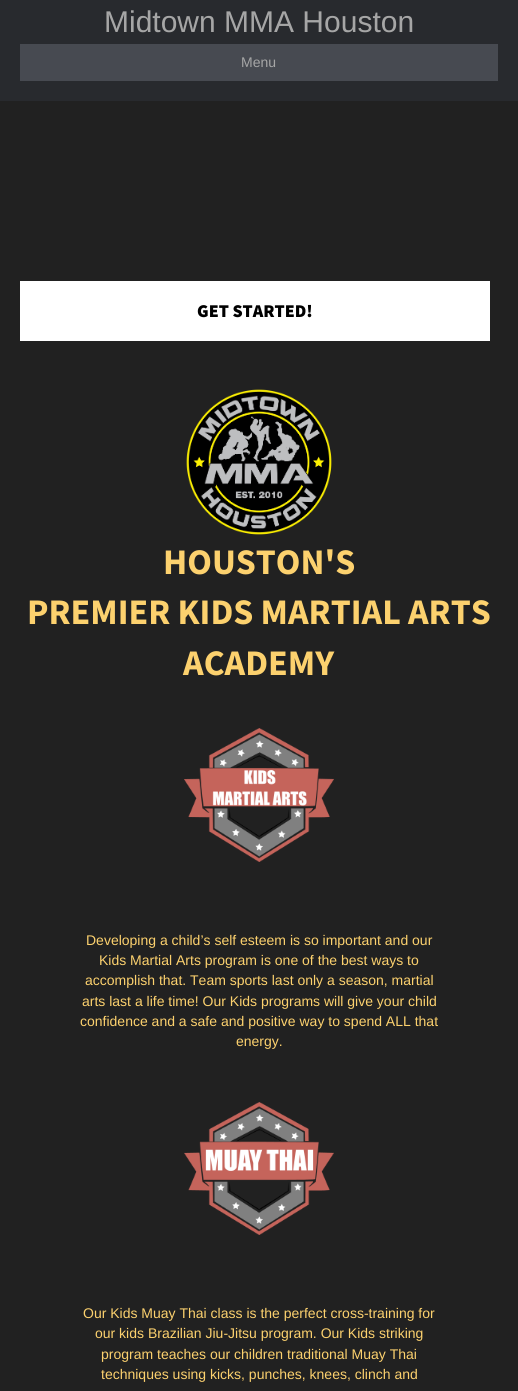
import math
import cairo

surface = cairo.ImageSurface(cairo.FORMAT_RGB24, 518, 1391)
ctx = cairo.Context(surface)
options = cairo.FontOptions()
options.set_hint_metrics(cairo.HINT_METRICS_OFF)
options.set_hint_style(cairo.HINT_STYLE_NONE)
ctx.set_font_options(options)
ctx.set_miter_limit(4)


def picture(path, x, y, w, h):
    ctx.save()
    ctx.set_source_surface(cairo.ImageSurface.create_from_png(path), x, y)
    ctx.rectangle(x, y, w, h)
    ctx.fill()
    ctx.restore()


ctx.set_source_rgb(0.157, 0.165, 0.18)
ctx.paint()
ctx.select_font_face("Liberation Sans")
ctx.set_font_size(30)
ctx.set_source_rgb(0.651, 0.651, 0.651)
ctx.move_to(104, 32)
ctx.show_text("Midtown MMA Houston")
ctx.set_source_rgb(0.278, 0.29, 0.318)
ctx.rectangle(20, 44, 478, 37)
ctx.fill()
ctx.set_font_size(14)
ctx.set_source_rgb(0.651, 0.651, 0.651)
ctx.move_to(241, 67)
ctx.show_text("Menu")
ctx.set_source_rgb(0.129, 0.129, 0.129)
ctx.rectangle(0, 101, 518, 1290)
ctx.fill()
ctx.set_source_rgb(1, 1, 1)
ctx.rectangle(20, 281, 470, 60)
ctx.fill()
ctx.select_font_face("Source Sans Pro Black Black")
ctx.set_font_size(18)
ctx.set_source_rgb(0, 0, 0)
ctx.move_to(197, 317)
ctx.show_text("GET STARTED!")
picture("img1.png", 186, 389, 146, 146)
ctx.select_font_face("Source Sans Pro", cairo.FONT_SLANT_NORMAL, cairo.FONT_WEIGHT_BOLD)
ctx.set_font_size(36)
ctx.set_source_rgb(0.988, 0.82, 0.431)
ctx.move_to(163, 574)
ctx.show_text("HOUSTON'S")
ctx.move_to(27, 624)
ctx.show_text("PREMIER KIDS MARTIAL ARTS")
ctx.move_to(183, 675)
ctx.show_text("ACADEMY")
picture("img2.png", 184, 728, 150, 134)
ctx.select_font_face("Liberation Sans")
ctx.set_font_size(14)
ctx.move_to(86, 945)
ctx.show_text("Developing a child’s self esteem is so important and our")
ctx.move_to(99, 965)
ctx.show_text("Kids Martial Arts program is one of the best ways to")
ctx.move_to(85, 985)
ctx.show_text("accomplish that. Team sports last only a season, martial")
ctx.move_to(82, 1006)
ctx.show_text("arts last a life time! Our Kids programs will give your child")
ctx.move_to(80, 1026)
ctx.show_text("confidence and a safe and positive way to spend ALL that")
ctx.move_to(236, 1046)
ctx.show_text("energy.")
picture("img3.png", 184, 1102, 150, 133)
ctx.move_to(83, 1318)
ctx.show_text("Our Kids Muay Thai class is the perfect cross-training for")
ctx.move_to(95, 1338)
ctx.show_text("our kids Brazilian Jiu-Jitsu program. Our Kids striking")
ctx.move_to(101, 1359)
ctx.show_text("program teaches our children traditional Muay Thai")
ctx.move_to(101, 1379)
ctx.show_text("techniques using kicks, punches, knees, clinch and")
surface.write_to_png("page.png")
